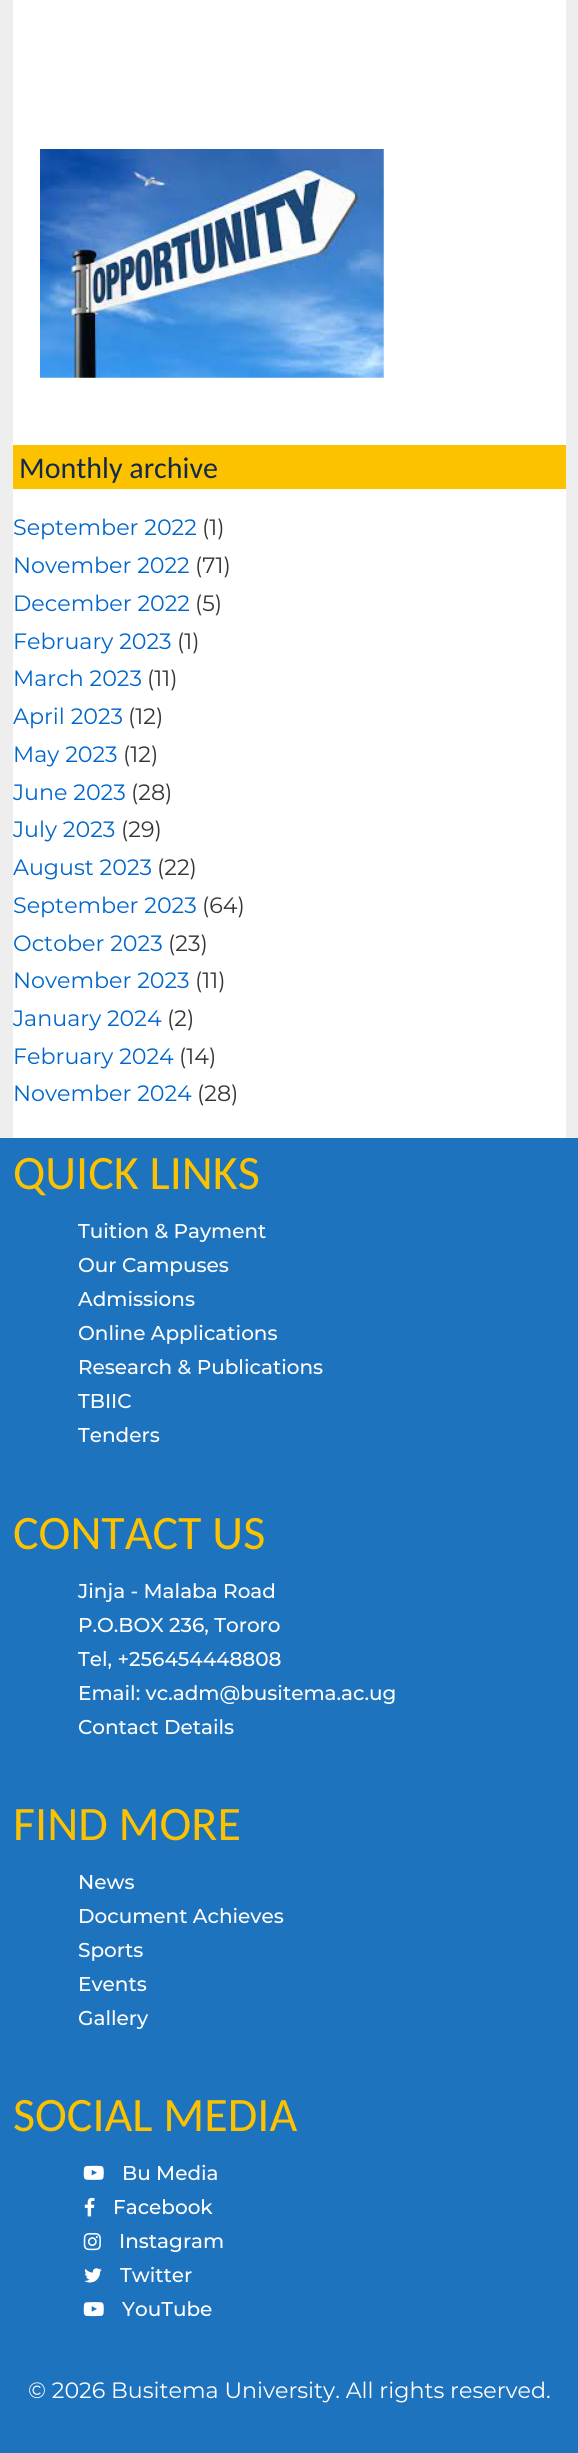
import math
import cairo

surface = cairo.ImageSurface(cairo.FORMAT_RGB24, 578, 2453)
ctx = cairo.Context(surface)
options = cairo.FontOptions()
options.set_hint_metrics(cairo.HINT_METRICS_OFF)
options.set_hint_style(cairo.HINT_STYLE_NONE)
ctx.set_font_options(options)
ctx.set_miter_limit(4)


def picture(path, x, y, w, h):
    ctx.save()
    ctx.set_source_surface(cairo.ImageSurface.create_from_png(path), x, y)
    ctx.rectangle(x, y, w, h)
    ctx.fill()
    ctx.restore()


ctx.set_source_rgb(0.933, 0.933, 0.933)
ctx.paint()
ctx.set_source_rgb(1, 1, 1)
ctx.rectangle(13, 0, 553, 1138)
ctx.fill()
picture("img1.png", 40, 149, 344, 229)
ctx.set_source_rgb(0.988, 0.761, 0)
ctx.rectangle(13, 445, 553, 44)
ctx.fill()
ctx.select_font_face("Carlito")
ctx.set_font_size(30)
ctx.set_source_rgb(0.075, 0.161, 0.294)
ctx.move_to(19, 478)
ctx.show_text("Monthly archive")
ctx.select_font_face("Montserrat")
ctx.set_font_size(22.2)
ctx.set_source_rgb(0, 0.4, 0.8)
ctx.move_to(13, 535)
ctx.show_text("September 2022")
ctx.set_source_rgb(0.212, 0.212, 0.212)
ctx.move_to(202, 535)
ctx.show_text("(1)")
ctx.set_source_rgb(0, 0.4, 0.8)
ctx.move_to(13, 573)
ctx.show_text("November 2022")
ctx.set_source_rgb(0.212, 0.212, 0.212)
ctx.move_to(195, 573)
ctx.show_text("(71)")
ctx.set_source_rgb(0, 0.4, 0.8)
ctx.move_to(13, 611)
ctx.show_text("December 2022")
ctx.set_source_rgb(0.212, 0.212, 0.212)
ctx.move_to(195, 611)
ctx.show_text("(5)")
ctx.set_source_rgb(0, 0.4, 0.8)
ctx.move_to(13, 649)
ctx.show_text("February 2023")
ctx.set_source_rgb(0.212, 0.212, 0.212)
ctx.move_to(177, 649)
ctx.show_text("(1)")
ctx.set_source_rgb(0, 0.4, 0.8)
ctx.move_to(13, 686)
ctx.show_text("March 2023")
ctx.set_source_rgb(0.212, 0.212, 0.212)
ctx.move_to(147, 686)
ctx.show_text("(11)")
ctx.set_source_rgb(0, 0.4, 0.8)
ctx.move_to(13, 724)
ctx.show_text("April 2023")
ctx.set_source_rgb(0.212, 0.212, 0.212)
ctx.move_to(128, 724)
ctx.show_text("(12)")
ctx.set_source_rgb(0, 0.4, 0.8)
ctx.move_to(13, 762)
ctx.show_text("May 2023")
ctx.set_source_rgb(0.212, 0.212, 0.212)
ctx.move_to(123, 762)
ctx.show_text("(12)")
ctx.set_source_rgb(0, 0.4, 0.8)
ctx.move_to(13, 800)
ctx.show_text("June 2023")
ctx.set_source_rgb(0.212, 0.212, 0.212)
ctx.move_to(131, 800)
ctx.show_text("(28)")
ctx.set_source_rgb(0, 0.4, 0.8)
ctx.move_to(13, 837)
ctx.show_text("July 2023")
ctx.set_source_rgb(0.212, 0.212, 0.212)
ctx.move_to(121, 837)
ctx.show_text("(29)")
ctx.set_source_rgb(0, 0.4, 0.8)
ctx.move_to(13, 875)
ctx.show_text("August 2023")
ctx.set_source_rgb(0.212, 0.212, 0.212)
ctx.move_to(157, 875)
ctx.show_text("(22)")
ctx.set_source_rgb(0, 0.4, 0.8)
ctx.move_to(13, 913)
ctx.show_text("September 2023")
ctx.set_source_rgb(0.212, 0.212, 0.212)
ctx.move_to(202, 913)
ctx.show_text("(64)")
ctx.set_source_rgb(0, 0.4, 0.8)
ctx.move_to(13, 951)
ctx.show_text("October 2023")
ctx.set_source_rgb(0.212, 0.212, 0.212)
ctx.move_to(168, 951)
ctx.show_text("(23)")
ctx.set_source_rgb(0, 0.4, 0.8)
ctx.move_to(13, 988)
ctx.show_text("November 2023")
ctx.set_source_rgb(0.212, 0.212, 0.212)
ctx.move_to(195, 988)
ctx.show_text("(11)")
ctx.set_source_rgb(0, 0.4, 0.8)
ctx.move_to(13, 1026)
ctx.show_text("January 2024")
ctx.set_source_rgb(0.212, 0.212, 0.212)
ctx.move_to(167, 1026)
ctx.show_text("(2)")
ctx.set_source_rgb(0, 0.4, 0.8)
ctx.move_to(13, 1064)
ctx.show_text("February 2024")
ctx.set_source_rgb(0.212, 0.212, 0.212)
ctx.move_to(179, 1064)
ctx.show_text("(14)")
ctx.set_source_rgb(0, 0.4, 0.8)
ctx.move_to(13, 1101)
ctx.show_text("November 2024")
ctx.set_source_rgb(0.212, 0.212, 0.212)
ctx.move_to(197, 1101)
ctx.show_text("(28)")
ctx.set_source_rgb(0.118, 0.451, 0.745)
ctx.rectangle(0, 1138, 578, 1315)
ctx.fill()
ctx.select_font_face("Carlito")
ctx.set_font_size(48)
ctx.set_source_rgb(0.988, 0.761, 0)
ctx.move_to(13, 1189)
ctx.show_text("QUICK LINKS")
ctx.select_font_face("Montserrat Medium")
ctx.set_font_size(20)
ctx.set_source_rgb(1, 1, 1)
ctx.move_to(78, 1238)
ctx.show_text("Tuition & Payment")
ctx.move_to(78, 1272)
ctx.show_text("Our Campuses")
ctx.move_to(78, 1306)
ctx.show_text("Admissions")
ctx.move_to(78, 1340)
ctx.show_text("Online Applications")
ctx.move_to(78, 1374)
ctx.show_text("Research & Publications")
ctx.move_to(78, 1408)
ctx.show_text("TBIIC")
ctx.move_to(78, 1442)
ctx.show_text("Tenders")
ctx.select_font_face("Carlito")
ctx.set_font_size(48)
ctx.set_source_rgb(0.988, 0.761, 0)
ctx.move_to(13, 1549)
ctx.show_text("CONTACT US")
ctx.select_font_face("Montserrat Medium")
ctx.set_font_size(20)
ctx.set_source_rgb(1, 1, 1)
ctx.move_to(78, 1598)
ctx.show_text("Jinja - Malaba Road")
ctx.move_to(78, 1632)
ctx.show_text("P.O.BOX 236, Tororo")
ctx.move_to(78, 1666)
ctx.show_text("Tel, +256454448808")
ctx.move_to(78, 1700)
ctx.show_text("Email: vc.adm@busitema.ac.ug")
ctx.move_to(78, 1734)
ctx.show_text("Contact Details")
ctx.select_font_face("Carlito")
ctx.set_font_size(48)
ctx.set_source_rgb(0.988, 0.761, 0)
ctx.move_to(13, 1840)
ctx.show_text("FIND MORE")
ctx.select_font_face("Montserrat Medium")
ctx.set_font_size(20)
ctx.set_source_rgb(1, 1, 1)
ctx.move_to(78, 1889)
ctx.show_text("News")
ctx.move_to(78, 1923)
ctx.show_text("Document Achieves")
ctx.move_to(78, 1957)
ctx.show_text("Sports")
ctx.move_to(78, 1991)
ctx.show_text("Events")
ctx.move_to(78, 2025)
ctx.show_text("Gallery")
ctx.select_font_face("Carlito")
ctx.set_font_size(48)
ctx.set_source_rgb(0.988, 0.761, 0)
ctx.move_to(13, 2131)
ctx.show_text("SOCIAL MEDIA")
picture("img2.png", 83, 2165, 21, 15)
ctx.select_font_face("Montserrat Medium")
ctx.set_font_size(20)
ctx.set_source_rgb(1, 1, 1)
ctx.move_to(122, 2180)
ctx.show_text("Bu Media")
picture("img3.png", 84, 2197, 11, 20)
ctx.move_to(113, 2214)
ctx.show_text("Facebook")
picture("img4.png", 83, 2233, 18, 18)
ctx.move_to(119, 2248)
ctx.show_text("Instagram")
picture("img5.png", 84, 2268, 18, 15)
ctx.move_to(120, 2282)
ctx.show_text("Twitter")
picture("img6.png", 83, 2302, 21, 15)
ctx.move_to(122, 2316)
ctx.show_text("YouTube")
ctx.select_font_face("Montserrat")
ctx.set_font_size(22.2)
ctx.move_to(28, 2398)
ctx.show_text("© 2026 Busitema University. All rights reserved.")
surface.write_to_png("page.png")
